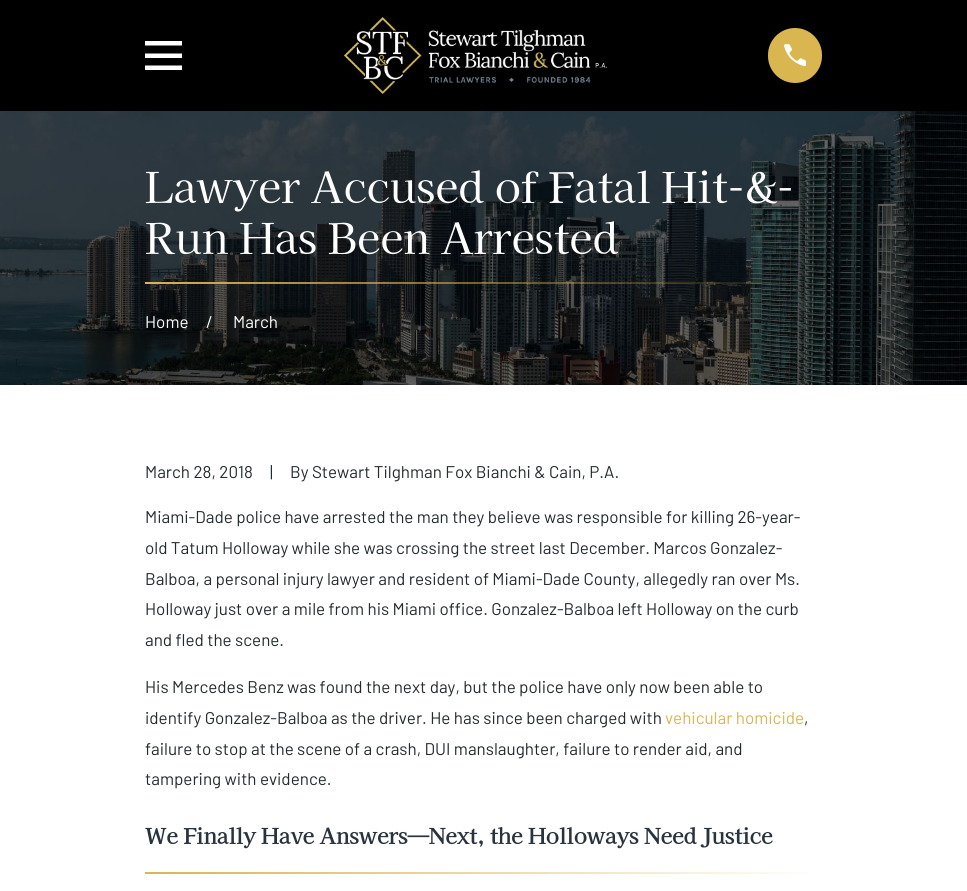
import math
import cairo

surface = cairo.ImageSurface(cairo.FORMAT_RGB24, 967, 891)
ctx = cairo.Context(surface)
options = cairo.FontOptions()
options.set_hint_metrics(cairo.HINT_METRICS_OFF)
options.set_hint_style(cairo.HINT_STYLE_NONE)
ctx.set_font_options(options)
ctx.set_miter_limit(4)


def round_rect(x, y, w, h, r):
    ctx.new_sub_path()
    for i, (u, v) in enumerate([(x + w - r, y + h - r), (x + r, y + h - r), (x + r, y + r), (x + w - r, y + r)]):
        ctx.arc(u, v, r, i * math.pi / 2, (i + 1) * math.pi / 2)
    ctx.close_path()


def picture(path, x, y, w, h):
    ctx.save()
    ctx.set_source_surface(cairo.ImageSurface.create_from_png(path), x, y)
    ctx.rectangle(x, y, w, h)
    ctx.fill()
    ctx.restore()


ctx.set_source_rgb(1, 1, 1)
ctx.paint()
ctx.set_source_rgb(0, 0, 0)
ctx.rectangle(0, 0, 967, 111)
ctx.fill()
ctx.save()
ctx.rectangle(145, 35, 37, 41)
ctx.clip()
ctx.set_source_rgb(1, 1, 1)
ctx.new_path()
ctx.move_to(145, 41)
ctx.line_to(145, 45.5)
ctx.line_to(182.5, 45.5)
ctx.line_to(182.5, 41)
ctx.close_path()
ctx.move_to(145, 53.5)
ctx.line_to(145, 58)
ctx.line_to(182.5, 58)
ctx.line_to(182.5, 53.5)
ctx.close_path()
ctx.move_to(145, 65.5)
ctx.line_to(145, 70)
ctx.line_to(182.5, 70)
ctx.line_to(182.5, 65.5)
ctx.close_path()
ctx.fill()
ctx.restore()
picture("img1.png", 344, 17, 263, 77)
ctx.set_source_rgb(0.851, 0.714, 0.314)
round_rect(768, 28, 54, 55, 27)
ctx.fill()
picture("img2.png", 784, 44, 22, 23)
picture("img3.png", 0, 111, 967, 274)
ctx.select_font_face("Kaisei Decol")
ctx.set_font_size(42.5)
ctx.set_source_rgb(1, 1, 1)
ctx.move_to(145, 203)
ctx.show_text("Lawyer Accused of Fatal Hit-&-")
ctx.move_to(145, 254)
ctx.show_text("Run Has Been Arrested")
ctx.select_font_face("Barlow")
ctx.set_font_size(17)
ctx.move_to(145, 328)
ctx.show_text("Home")
ctx.move_to(206, 328)
ctx.show_text("/")
ctx.move_to(233, 328)
ctx.show_text("March")
ctx.set_source_rgb(0.141, 0.169, 0.18)
ctx.move_to(145, 478)
ctx.show_text("March 28, 2018")
ctx.move_to(270, 478)
ctx.show_text("|")
ctx.move_to(290, 478)
ctx.show_text("By Stewart Tilghman Fox Bianchi & Cain, P.A.")
ctx.move_to(145, 523)
ctx.show_text("Miami-Dade police have arrested the man they believe was responsible for killing 26-year-")
ctx.move_to(145, 554)
ctx.show_text("old Tatum Holloway while she was crossing the street last December. Marcos Gonzalez-")
ctx.move_to(145, 585)
ctx.show_text("Balboa, a personal injury lawyer and resident of Miami-Dade County, allegedly ran over Ms.")
ctx.move_to(145, 615)
ctx.show_text("Holloway just over a mile from his Miami office. Gonzalez-Balboa left Holloway on the curb")
ctx.move_to(145, 646)
ctx.show_text("and fled the scene.")
ctx.move_to(145, 693)
ctx.show_text("His Mercedes Benz was found the next day, but the police have only now been able to")
ctx.move_to(145, 724)
ctx.show_text("identify Gonzalez-Balboa as the driver. He has since been charged with")
ctx.set_source_rgb(0.851, 0.714, 0.314)
ctx.move_to(665, 724)
ctx.show_text("vehicular homicide")
ctx.set_source_rgb(0.141, 0.169, 0.18)
ctx.move_to(804, 724)
ctx.show_text(",")
ctx.move_to(145, 755)
ctx.show_text("failure to stop at the scene of a crash, DUI manslaughter, failure to render aid, and")
ctx.move_to(145, 785)
ctx.show_text("tampering with evidence.")
ctx.select_font_face("Kaisei Decol", cairo.FONT_SLANT_NORMAL, cairo.FONT_WEIGHT_BOLD)
ctx.set_font_size(21.25)
ctx.set_source_rgb(0.161, 0.2, 0.243)
ctx.move_to(145, 844)
ctx.show_text("We Finally Have Answers—Next, the Holloways Need Justice")
gradient = cairo.LinearGradient(145, 873, 822, 873)
gradient.add_color_stop_rgba(0, 0.851, 0.714, 0.314, 1)
gradient.add_color_stop_rgba(1, 1, 1, 1, 1)
ctx.set_source(gradient)
ctx.rectangle(145, 872, 667, 2)
ctx.fill()
surface.write_to_png("page.png")
